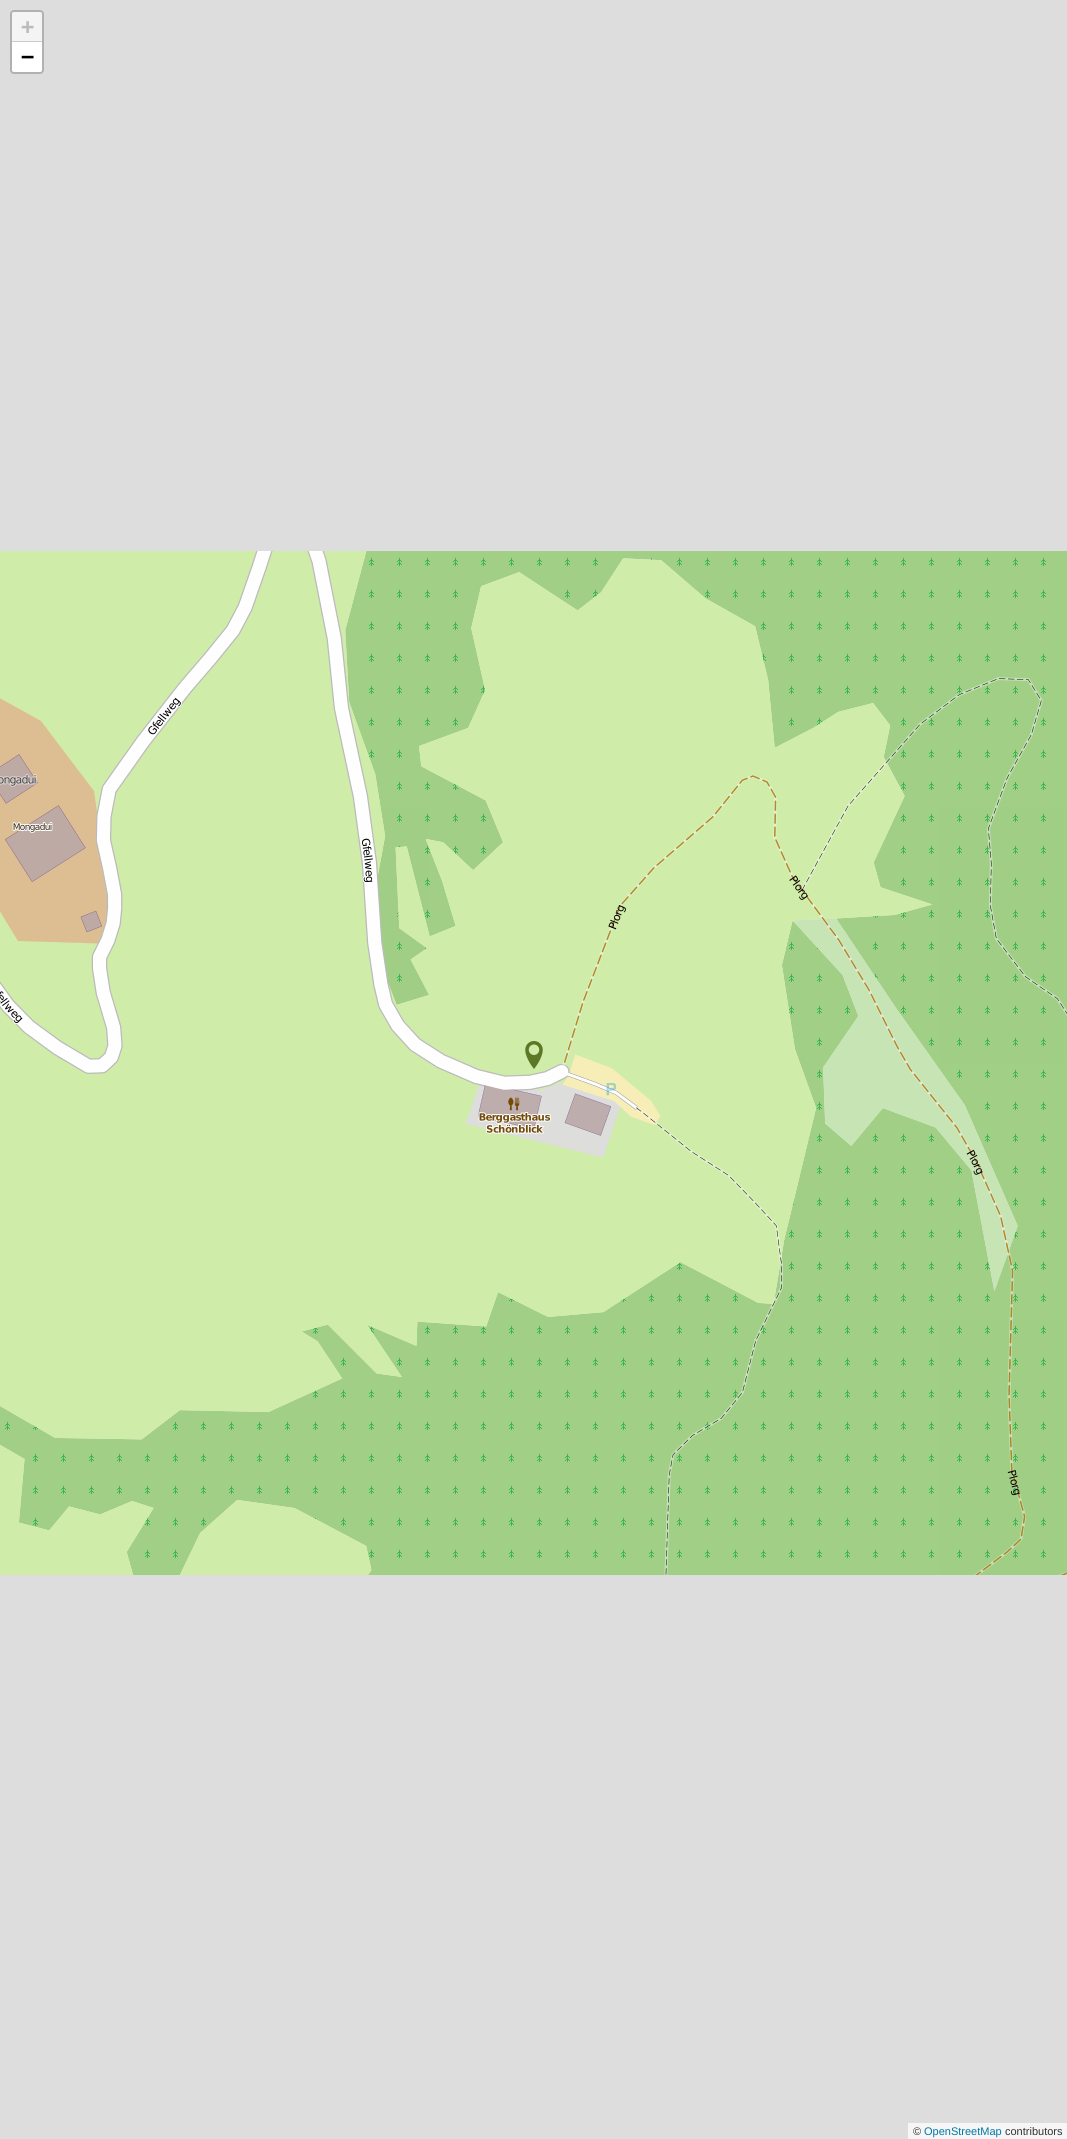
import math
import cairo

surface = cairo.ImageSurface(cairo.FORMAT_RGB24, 1067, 2139)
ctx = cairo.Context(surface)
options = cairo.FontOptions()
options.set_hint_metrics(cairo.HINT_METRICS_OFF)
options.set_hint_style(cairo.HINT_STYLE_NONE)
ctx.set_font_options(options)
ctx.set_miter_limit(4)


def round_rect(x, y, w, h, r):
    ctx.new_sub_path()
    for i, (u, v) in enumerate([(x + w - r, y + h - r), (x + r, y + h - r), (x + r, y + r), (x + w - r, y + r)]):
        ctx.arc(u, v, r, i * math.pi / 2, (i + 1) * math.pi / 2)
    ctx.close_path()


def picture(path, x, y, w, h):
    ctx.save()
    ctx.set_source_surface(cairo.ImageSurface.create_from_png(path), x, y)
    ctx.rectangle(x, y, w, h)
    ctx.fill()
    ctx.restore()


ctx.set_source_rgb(0.867, 0.867, 0.867)
ctx.paint()
round_rect(11, 11, 32, 62, 3)
ctx.set_source_rgb(0.694, 0.694, 0.694)
ctx.stroke()
ctx.set_source_rgb(0.957, 0.957, 0.957)
ctx.new_path()
ctx.move_to(14, 12)
ctx.line_to(40, 12)
ctx.curve_to(41, 12, 42, 13, 42, 14)
ctx.line_to(42, 42)
ctx.line_to(12, 42)
ctx.line_to(12, 14)
ctx.curve_to(12, 13, 13, 12, 14, 12)
ctx.close_path()
ctx.fill()
ctx.set_source_rgb(0.8, 0.8, 0.8)
ctx.rectangle(12, 41, 30, 1)
ctx.fill()
ctx.select_font_face("DejaVu Sans Mono", cairo.FONT_SLANT_NORMAL, cairo.FONT_WEIGHT_BOLD)
ctx.set_font_size(22)
ctx.set_source_rgb(0.733, 0.733, 0.733)
ctx.move_to(21, 34)
ctx.show_text("+")
ctx.set_source_rgb(1, 1, 1)
ctx.new_path()
ctx.move_to(12, 42)
ctx.line_to(42, 42)
ctx.line_to(42, 70)
ctx.curve_to(42, 71, 41, 72, 40, 72)
ctx.line_to(14, 72)
ctx.curve_to(13, 72, 12, 71, 12, 70)
ctx.close_path()
ctx.fill()
ctx.set_source_rgb(0, 0, 0)
ctx.move_to(21, 64)
ctx.show_text("−")
ctx.set_source_rgb(0.961, 0.961, 0.961)
ctx.rectangle(908, 2123, 159, 16)
ctx.fill()
ctx.select_font_face("Liberation Sans")
ctx.set_font_size(11)
ctx.set_source_rgb(0.2, 0.2, 0.2)
ctx.move_to(913, 2135)
ctx.show_text("©")
ctx.set_source_rgb(0, 0.471, 0.659)
ctx.move_to(924, 2135)
ctx.show_text("OpenStreetMap")
ctx.set_source_rgb(0.2, 0.2, 0.2)
ctx.move_to(1005, 2135)
ctx.show_text("contributors")
picture("img1.png", 0, 551, 172, 256)
picture("img2.png", 172, 551, 256, 256)
picture("img3.png", 428, 551, 256, 256)
picture("img4.png", 684, 551, 256, 256)
picture("img5.png", 940, 551, 127, 256)
picture("img6.png", 0, 807, 172, 256)
picture("img7.png", 172, 807, 256, 256)
picture("img8.png", 428, 807, 256, 256)
picture("img9.png", 684, 807, 256, 256)
picture("img10.png", 940, 807, 127, 256)
picture("img11.png", 0, 1063, 172, 256)
ctx.set_source_rgb(0.812, 0.925, 0.659)
ctx.rectangle(172, 1063, 256, 256)
ctx.fill()
picture("img12.png", 428, 1063, 256, 256)
picture("img13.png", 684, 1063, 256, 256)
picture("img14.png", 940, 1063, 127, 256)
picture("img15.png", 0, 1319, 172, 256)
picture("img16.png", 172, 1319, 256, 256)
picture("img17.png", 428, 1319, 256, 256)
picture("img18.png", 684, 1319, 256, 256)
picture("img19.png", 940, 1319, 127, 256)
picture("img20.png", 525, 1041, 18, 28)
surface.write_to_png("page.png")
